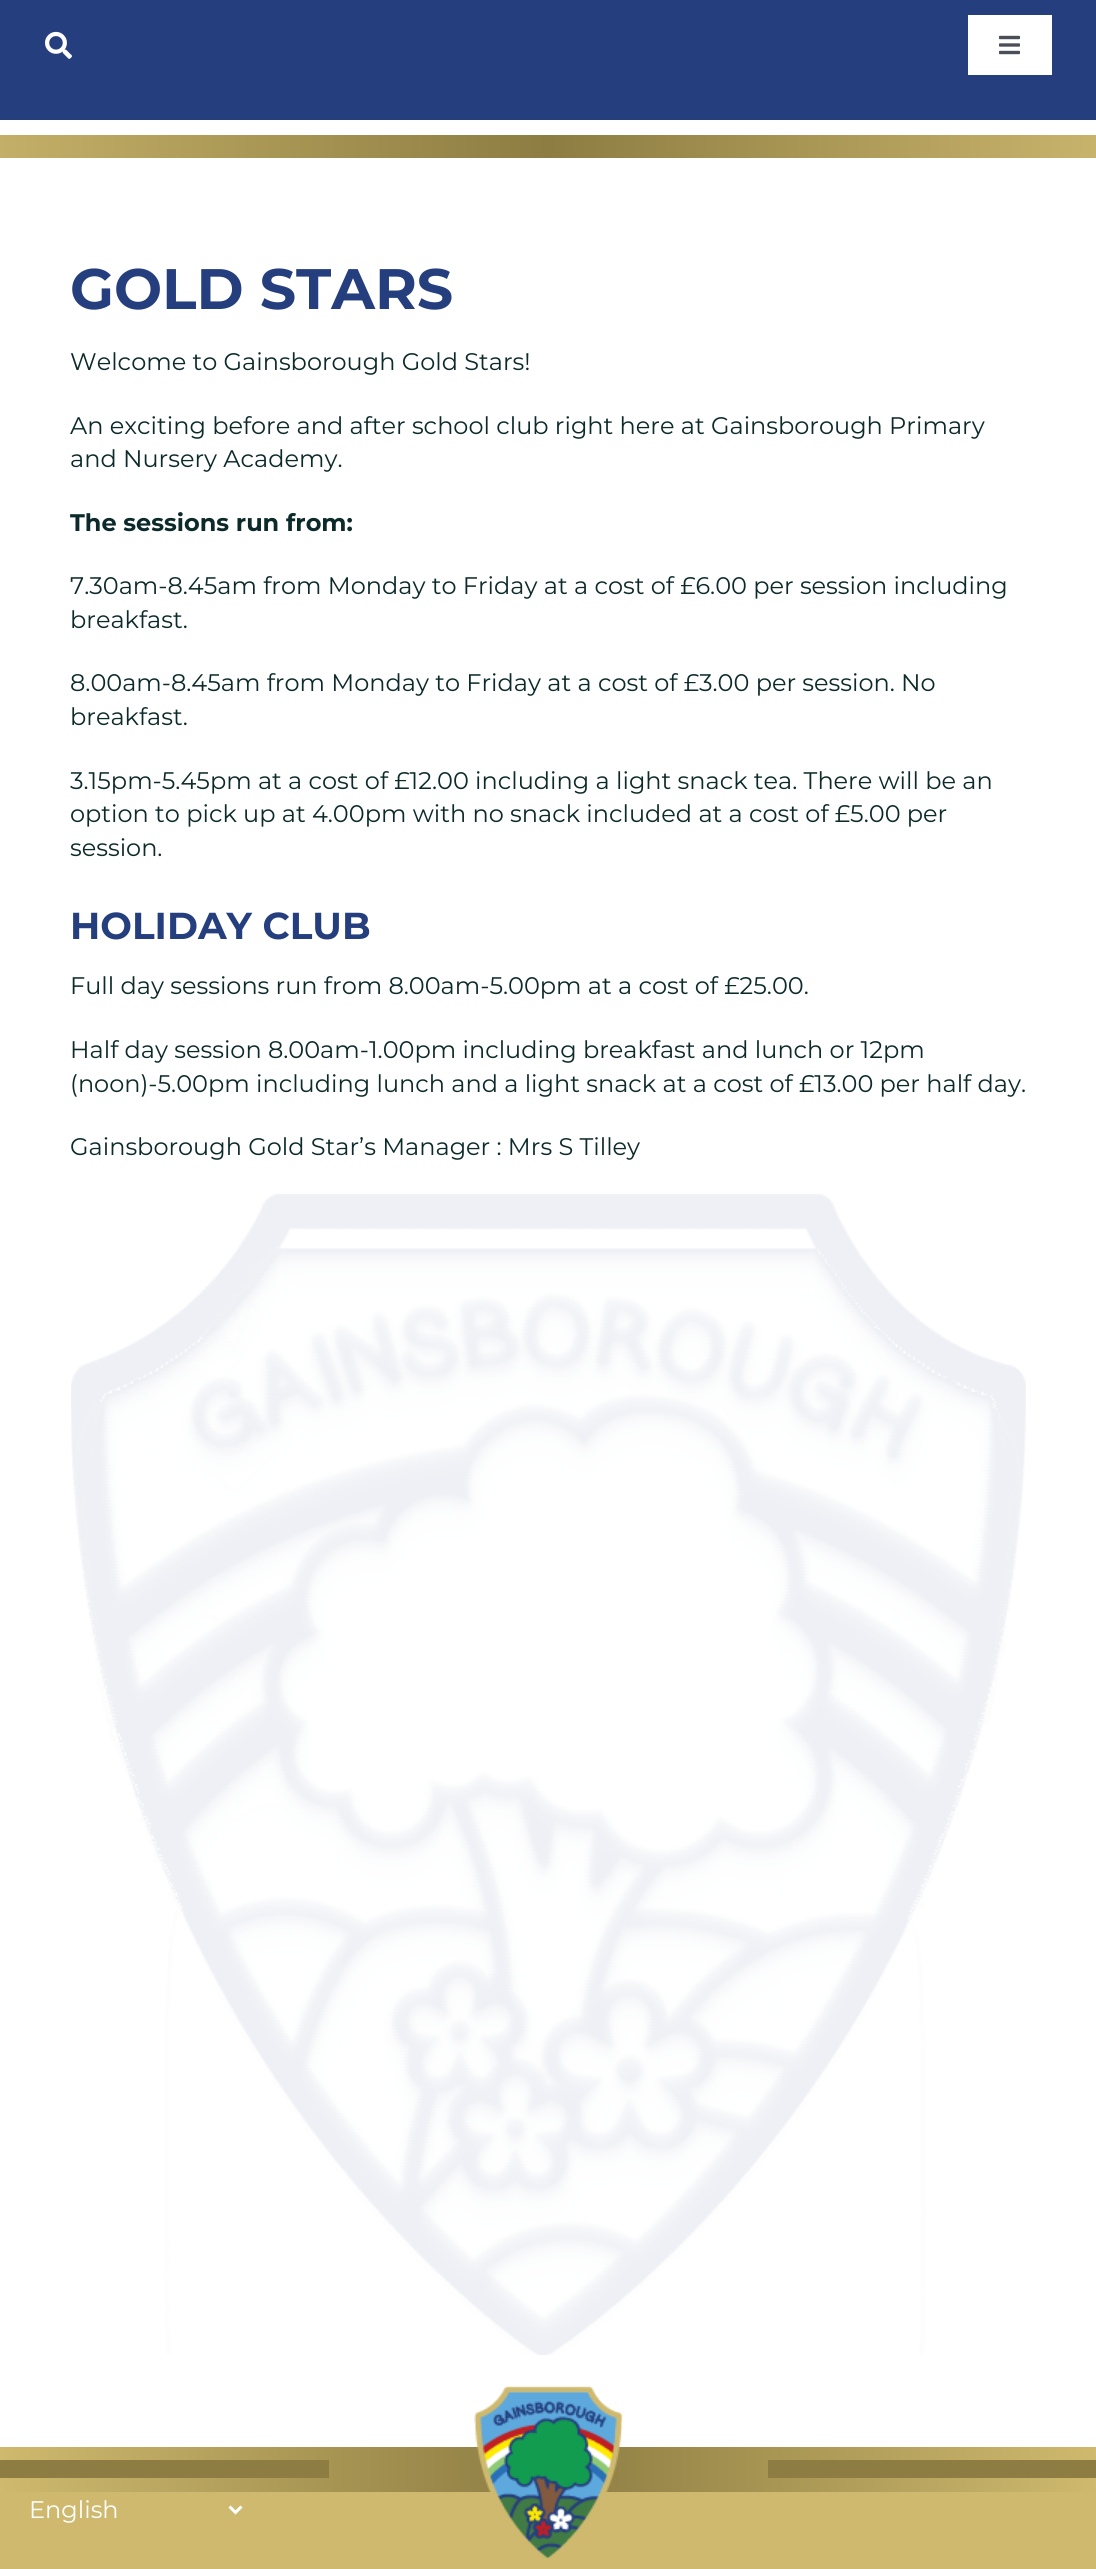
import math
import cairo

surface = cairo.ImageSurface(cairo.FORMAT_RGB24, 1096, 2569)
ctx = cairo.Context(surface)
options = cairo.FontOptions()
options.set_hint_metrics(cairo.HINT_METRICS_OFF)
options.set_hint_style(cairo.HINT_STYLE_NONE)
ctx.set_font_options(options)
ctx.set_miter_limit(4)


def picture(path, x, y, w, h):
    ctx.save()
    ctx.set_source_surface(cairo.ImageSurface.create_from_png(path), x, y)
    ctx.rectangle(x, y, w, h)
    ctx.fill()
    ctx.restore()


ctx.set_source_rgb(1, 1, 1)
ctx.paint()
ctx.set_source_rgb(0.145, 0.247, 0.494)
ctx.rectangle(0, 0, 1096, 120)
ctx.fill()
picture("img1.png", 45, 31, 27, 28)
ctx.set_source_rgb(1, 1, 1)
ctx.rectangle(968, 15, 84, 60)
ctx.fill()
picture("img2.png", 999, 35, 21, 20)
gradient = cairo.LinearGradient(0, 146, 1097, 146)
gradient.add_color_stop_rgba(0, 0.765, 0.686, 0.404, 1)
gradient.add_color_stop_rgba(0.5, 0.553, 0.49, 0.259, 1)
gradient.add_color_stop_rgba(1, 0.784, 0.702, 0.42, 1)
ctx.set_source(gradient)
ctx.rectangle(0, 135, 1096, 23)
ctx.fill()
ctx.select_font_face("Montserrat", cairo.FONT_SLANT_NORMAL, cairo.FONT_WEIGHT_BOLD)
ctx.set_font_size(57)
ctx.set_source_rgb(0.145, 0.247, 0.494)
ctx.move_to(70, 309)
ctx.show_text("GOLD STARS")
ctx.select_font_face("Montserrat")
ctx.set_font_size(24)
ctx.set_source_rgb(0.051, 0.165, 0.169)
ctx.move_to(70, 370)
ctx.show_text("Welcome to Gainsborough Gold Stars!")
ctx.move_to(70, 434)
ctx.show_text("An exciting before and after school club right here at Gainsborough Primary")
ctx.move_to(70, 467)
ctx.show_text("and Nursery Academy.")
ctx.select_font_face("Montserrat", cairo.FONT_SLANT_NORMAL, cairo.FONT_WEIGHT_BOLD)
ctx.move_to(70, 531)
ctx.show_text("The sessions run from:")
ctx.select_font_face("Montserrat")
ctx.move_to(70, 594)
ctx.show_text("7.30am-8.45am from Monday to Friday at a cost of £6.00 per session including")
ctx.move_to(70, 628)
ctx.show_text("breakfast.")
ctx.move_to(70, 691)
ctx.show_text("8.00am-8.45am from Monday to Friday at a cost of £3.00 per session. No")
ctx.move_to(70, 725)
ctx.show_text("breakfast.")
ctx.move_to(70, 789)
ctx.show_text("3.15pm-5.45pm at a cost of £12.00 including a light snack tea. There will be an")
ctx.move_to(70, 822)
ctx.show_text("option to pick up at 4.00pm with no snack included at a cost of £5.00 per")
ctx.move_to(70, 856)
ctx.show_text("session.")
ctx.select_font_face("Montserrat", cairo.FONT_SLANT_NORMAL, cairo.FONT_WEIGHT_BOLD)
ctx.set_font_size(37.5)
ctx.set_source_rgb(0.145, 0.247, 0.494)
ctx.move_to(70, 939)
ctx.show_text("HOLIDAY CLUB")
ctx.select_font_face("Montserrat")
ctx.set_font_size(24)
ctx.set_source_rgb(0.051, 0.165, 0.169)
ctx.move_to(70, 994)
ctx.show_text("Full day sessions run from 8.00am-5.00pm at a cost of £25.00.")
ctx.move_to(70, 1058)
ctx.show_text("Half day session 8.00am-1.00pm including breakfast and lunch or 12pm")
ctx.move_to(70, 1092)
ctx.show_text("(noon)-5.00pm including lunch and a light snack at a cost of £13.00 per half day.")
ctx.move_to(70, 1155)
ctx.show_text("Gainsborough Gold Star’s Manager : Mrs S Tilley")
picture("img3.png", 71, 1194, 955, 1161)
ctx.set_source_rgb(0.808, 0.725, 0.431)
ctx.rectangle(0, 2492, 1096, 77)
ctx.fill()
gradient = cairo.LinearGradient(0, 2469, 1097, 2469)
gradient.add_color_stop_rgba(0, 0.808, 0.725, 0.431, 1)
gradient.add_color_stop_rgba(0.5, 0.553, 0.49, 0.259, 1)
gradient.add_color_stop_rgba(1, 0.808, 0.725, 0.431, 1)
ctx.set_source(gradient)
ctx.rectangle(0, 2447, 1096, 45)
ctx.fill()
picture("img4.png", 474, 2386, 149, 173)
ctx.set_source_rgb(0.553, 0.49, 0.259)
ctx.rectangle(0, 2460, 329, 18)
ctx.fill()
ctx.rectangle(768, 2460, 328, 18)
ctx.fill()
ctx.new_path()
ctx.move_to(229.5, 2506.5)
ctx.line_to(235.5, 2512.5)
ctx.line_to(241.5, 2506.5)
ctx.set_source_rgb(1, 1, 1)
ctx.set_line_width(3)
ctx.stroke()
ctx.move_to(29, 2518)
ctx.show_text("English")
surface.write_to_png("page.png")
